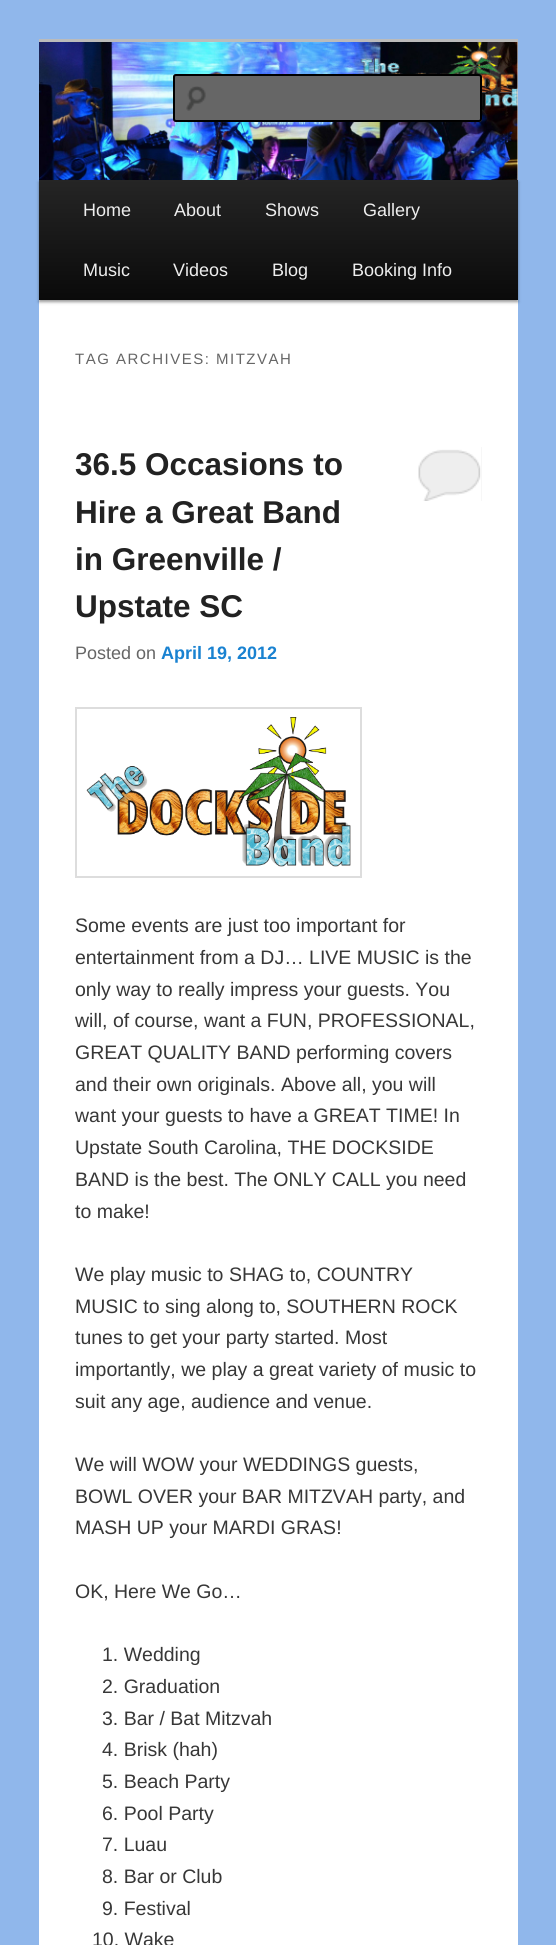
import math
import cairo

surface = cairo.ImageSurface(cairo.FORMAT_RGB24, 556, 1945)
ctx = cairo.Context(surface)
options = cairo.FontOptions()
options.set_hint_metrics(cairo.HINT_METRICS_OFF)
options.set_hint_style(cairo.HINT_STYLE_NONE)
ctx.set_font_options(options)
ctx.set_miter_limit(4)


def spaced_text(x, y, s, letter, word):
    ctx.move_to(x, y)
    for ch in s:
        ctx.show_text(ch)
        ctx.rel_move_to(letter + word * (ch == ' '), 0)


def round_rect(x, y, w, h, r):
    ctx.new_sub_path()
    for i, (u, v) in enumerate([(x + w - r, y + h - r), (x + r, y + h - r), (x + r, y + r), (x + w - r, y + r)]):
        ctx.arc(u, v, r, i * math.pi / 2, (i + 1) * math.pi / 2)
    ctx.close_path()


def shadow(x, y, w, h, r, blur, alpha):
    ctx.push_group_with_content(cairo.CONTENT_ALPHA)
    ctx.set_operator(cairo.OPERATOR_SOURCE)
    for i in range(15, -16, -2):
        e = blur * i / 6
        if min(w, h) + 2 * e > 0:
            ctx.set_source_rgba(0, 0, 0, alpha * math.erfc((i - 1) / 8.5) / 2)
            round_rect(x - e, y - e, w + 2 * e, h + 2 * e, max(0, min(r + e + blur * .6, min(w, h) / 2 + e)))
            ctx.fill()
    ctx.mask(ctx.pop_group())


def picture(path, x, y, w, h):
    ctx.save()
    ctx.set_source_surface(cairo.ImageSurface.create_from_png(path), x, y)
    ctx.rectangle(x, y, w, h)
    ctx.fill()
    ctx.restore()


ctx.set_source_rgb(0.565, 0.718, 0.918)
ctx.paint()
ctx.set_source_rgb(1, 1, 1)
ctx.rectangle(39, 42, 479, 1903)
ctx.fill()
ctx.set_source_rgb(0.733, 0.733, 0.733)
ctx.rectangle(39, 39, 479, 3)
ctx.fill()
ctx.set_source_rgb(0, 0, 0)
shadow(39, 182, 479, 120, 0, 1.5, 0.4)
picture("img1.png", 39, 42, 479, 138)
ctx.set_source_rgb(0.4, 0.4, 0.4)
round_rect(173, 74, 309, 48, 3)
ctx.fill()
picture("img2.png", 186, 86, 20, 25)
ctx.set_source_rgb(0.361, 0.361, 0.361)
ctx.new_path()
ctx.move_to(176, 76)
ctx.line_to(478, 76)
ctx.curve_to(479, 76, 480, 77, 480, 78)
ctx.line_to(480, 76)
ctx.line_to(478, 75)
ctx.line_to(176, 75)
ctx.curve_to(174, 75, 174, 77, 174, 78)
ctx.curve_to(174, 77, 175, 76, 176, 76)
ctx.close_path()
ctx.fill()
round_rect(174, 75, 307, 46, 2)
ctx.set_source_rgb(0, 0, 0)
ctx.stroke()
gradient = cairo.LinearGradient(278, 180, 278, 300)
gradient.add_color_stop_rgba(0, 0.145, 0.145, 0.145, 1)
gradient.add_color_stop_rgba(1, 0.039, 0.039, 0.039, 1)
ctx.set_source(gradient)
ctx.rectangle(39, 180, 479, 120)
ctx.fill()
ctx.select_font_face("Liberation Sans")
ctx.set_font_size(18)
ctx.set_source_rgb(0.933, 0.933, 0.933)
ctx.move_to(83, 216)
ctx.show_text("Home")
ctx.move_to(174, 216)
ctx.show_text("About")
ctx.move_to(265, 216)
ctx.show_text("Shows")
ctx.move_to(363, 216)
ctx.show_text("Gallery")
ctx.move_to(83, 276)
ctx.show_text("Music")
ctx.move_to(173, 276)
ctx.show_text("Videos")
ctx.move_to(272, 276)
ctx.show_text("Blog")
ctx.move_to(352, 276)
ctx.show_text("Booking Info")
ctx.set_font_size(15)
ctx.set_source_rgb(0.4, 0.4, 0.4)
spaced_text(75, 364, "TAG ARCHIVES: MITZVAH", 1.5, 0)
ctx.select_font_face("Liberation Sans", cairo.FONT_SLANT_NORMAL, cairo.FONT_WEIGHT_BOLD)
ctx.set_font_size(31.5)
ctx.set_source_rgb(0.133, 0.133, 0.133)
ctx.move_to(75, 475)
ctx.show_text("36.5 Occasions to")
ctx.move_to(75, 523)
ctx.show_text("Hire a Great Band")
ctx.move_to(75, 570)
ctx.show_text("in Greenville /")
ctx.move_to(75, 617)
ctx.show_text("Upstate SC")
ctx.set_source_rgb(0.933, 0.933, 0.933)
ctx.rectangle(418, 447, 64, 54)
ctx.fill()
picture("img3.png", 417, 447, 65, 54)
ctx.select_font_face("Liberation Sans")
ctx.set_font_size(18)
ctx.set_source_rgb(0.4, 0.4, 0.4)
ctx.move_to(75, 659)
ctx.show_text("Posted on")
ctx.select_font_face("Liberation Sans", cairo.FONT_SLANT_NORMAL, cairo.FONT_WEIGHT_BOLD)
ctx.set_source_rgb(0.098, 0.51, 0.82)
ctx.move_to(161, 659)
ctx.show_text("April 19, 2012")
ctx.rectangle(76, 708, 285, 169)
ctx.set_source_rgb(0.867, 0.867, 0.867)
ctx.stroke()
picture("img4.png", 86, 717, 265, 150)
ctx.select_font_face("Liberation Sans")
ctx.set_font_size(19.5)
ctx.set_source_rgb(0.216, 0.216, 0.216)
ctx.move_to(75, 932)
ctx.show_text("Some events are just too important for")
ctx.move_to(75, 964)
ctx.show_text("entertainment from a DJ… LIVE MUSIC is the")
ctx.move_to(75, 996)
ctx.show_text("only way to really impress your guests. You")
ctx.move_to(75, 1027)
ctx.show_text("will, of course, want a FUN, PROFESSIONAL,")
ctx.move_to(75, 1059)
ctx.show_text("GREAT QUALITY BAND performing covers")
ctx.move_to(75, 1091)
ctx.show_text("and their own originals. Above all, you will")
ctx.move_to(75, 1122)
ctx.show_text("want your guests to have a GREAT TIME! In")
ctx.move_to(75, 1154)
ctx.show_text("Upstate South Carolina, THE DOCKSIDE")
ctx.move_to(75, 1186)
ctx.show_text("BAND is the best. The ONLY CALL you need")
ctx.move_to(75, 1218)
ctx.show_text("to make!")
ctx.move_to(75, 1281)
ctx.show_text("We play music to SHAG to, COUNTRY")
ctx.move_to(75, 1313)
ctx.show_text("MUSIC to sing along to, SOUTHERN ROCK")
ctx.move_to(75, 1344)
ctx.show_text("tunes to get your party started. Most")
ctx.move_to(75, 1376)
ctx.show_text("importantly, we play a great variety of music to")
ctx.move_to(75, 1408)
ctx.show_text("suit any age, audience and venue.")
ctx.move_to(75, 1471)
ctx.show_text("We will WOW your WEDDINGS guests,")
ctx.move_to(75, 1503)
ctx.show_text("BOWL OVER your BAR MITZVAH party, and")
ctx.move_to(75, 1534)
ctx.show_text("MASH UP your MARDI GRAS!")
ctx.move_to(75, 1598)
ctx.show_text("OK, Here We Go…")
ctx.move_to(102, 1661)
ctx.show_text("1. Wedding")
ctx.move_to(102, 1693)
ctx.show_text("2. Graduation")
ctx.move_to(102, 1725)
ctx.show_text("3. Bar / Bat Mitzvah")
ctx.move_to(102, 1756)
ctx.show_text("4. Brisk (hah)")
ctx.move_to(102, 1788)
ctx.show_text("5. Beach Party")
ctx.move_to(102, 1820)
ctx.show_text("6. Pool Party")
ctx.move_to(102, 1851)
ctx.show_text("7. Luau")
ctx.move_to(102, 1883)
ctx.show_text("8. Bar or Club")
ctx.move_to(102, 1915)
ctx.show_text("9. Festival")
ctx.move_to(92, 1946)
ctx.show_text("10. Wake")
surface.write_to_png("page.png")
